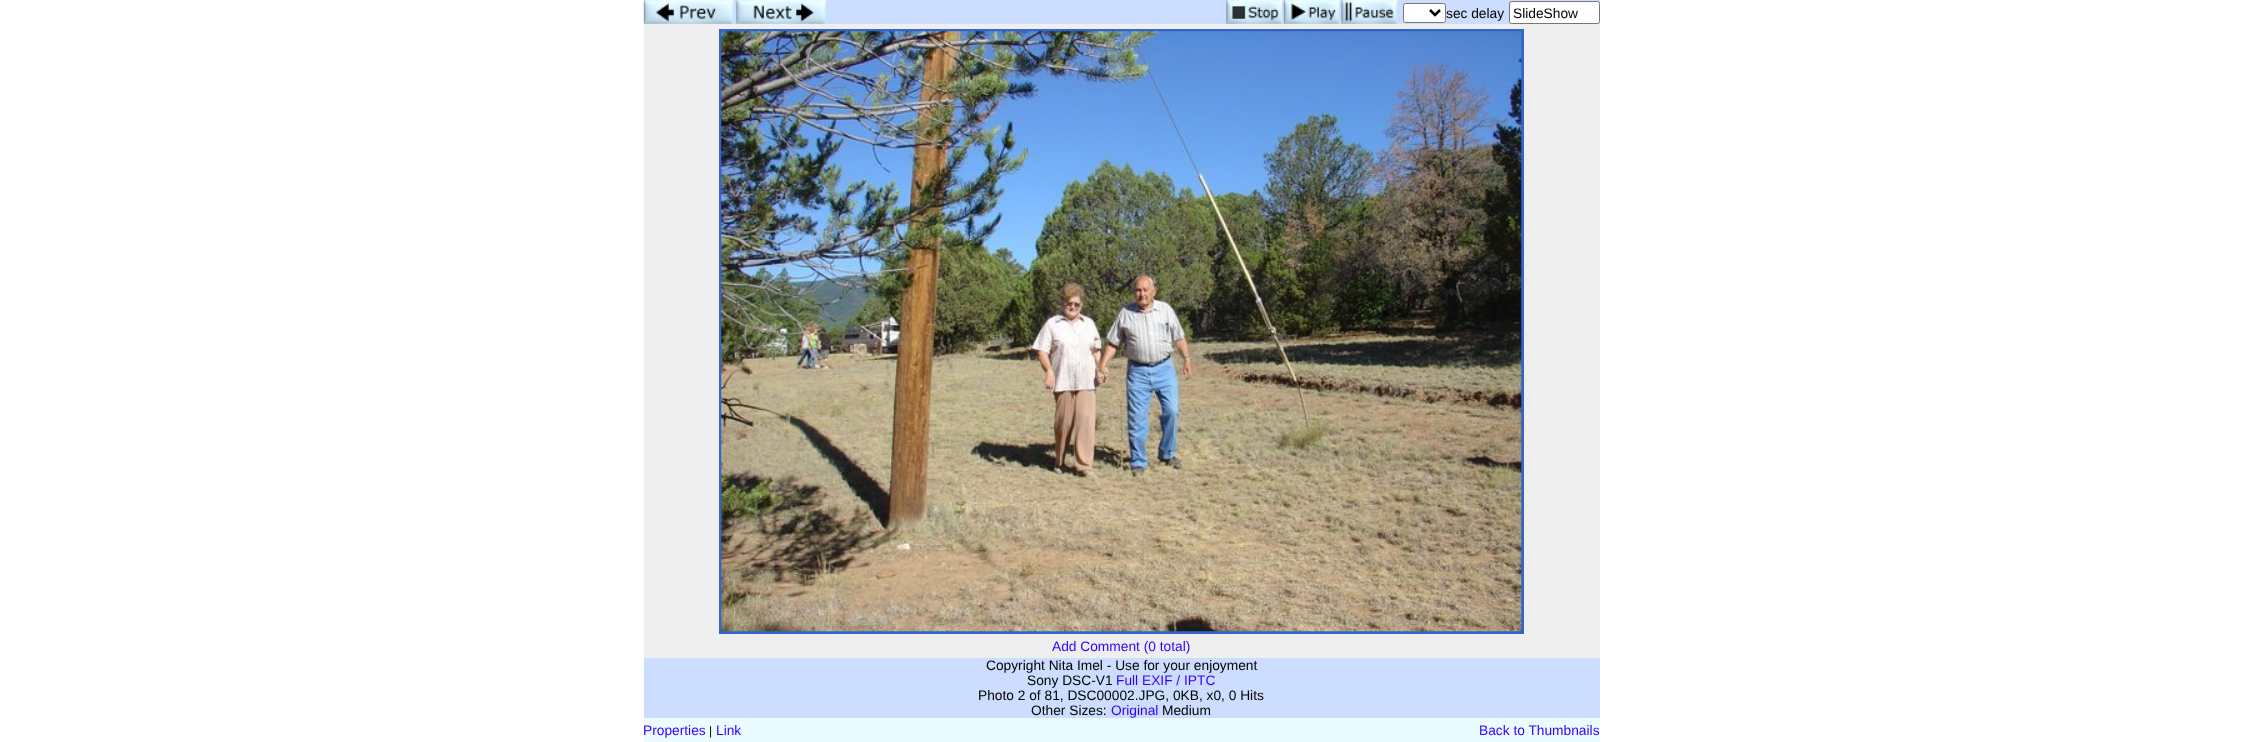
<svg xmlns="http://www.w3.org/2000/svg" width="2242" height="742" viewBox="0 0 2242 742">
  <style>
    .t1 { font: 13.75px Liberation Sans; fill: #000; }
    .t2 { font: 13.75px Liberation Sans; fill: #30f; }
    .t3 { font: 12px Liberation Sans; fill: #000; }
  </style>
  <rect width="100%" height="100%" fill="#fff"/>
  <rect x="644" y="0" width="956" height="24" fill="#cdf"/>
  <image x="643" y="0" width="91" height="24" href="images/1.png"/>
  <image x="736" y="0" width="91" height="24" href="images/2.png"/>
  <image x="1226" y="0" width="57" height="24" href="images/3.png"/>
  <image x="1283" y="0" width="57" height="24" href="images/4.png"/>
  <image x="1341" y="0" width="57" height="24" href="images/5.png"/>
  <rect x="1403.5" y="3.5" width="42" height="19" rx="2" fill="#fff" stroke="#767676"/>
  <path d="M1430 10L1435 15L1440 10" fill="none" stroke="#000" stroke-width="2.5"/>
  <text x="1446" y="18" class="t1">sec delay</text>
  <rect x="1509.5" y="1.5" width="90" height="22" rx="2" fill="#fff" stroke="#767676"/>
  <text x="1513" y="18" class="t1">SlideShow</text>
  <rect x="644" y="24" width="956" height="634" fill="#efefef"/>
  <rect x="720.5" y="30.5" width="802" height="602" fill="none" stroke="#36c" stroke-width="3"/>
  <image x="721" y="31" width="801" height="601" href="images/6.png"/>
  <text x="1052" y="651" class="t2">Add Comment (0 total)</text>
  <rect x="644" y="658" width="956" height="60" fill="#cdf"/>
  <text x="986" y="670" class="t1">Copyright Nita Imel - Use for your enjoyment</text>
  <text x="1027" y="685" class="t1">Sony DSC-V1</text>
  <text x="1116" y="685" class="t2">Full EXIF / IPTC</text>
  <text x="978" y="700" class="t1">Photo 2 of 81, DSC00002.JPG, 0KB, x0, 0 Hits</text>
  <text x="1031" y="715" class="t1">Other Sizes:</text>
  <text x="1111" y="715" class="t2">Original</text>
  <text x="1162" y="715" class="t1">Medium</text>
  <rect x="644" y="718" width="956" height="24" fill="#eafcff"/>
  <text x="643" y="735" class="t2">Properties</text>
  <text x="709" y="735" class="t3">|</text>
  <text x="716" y="735" class="t2">Link</text>
  <text x="1479" y="735" class="t2">Back to Thumbnails</text>
</svg>
